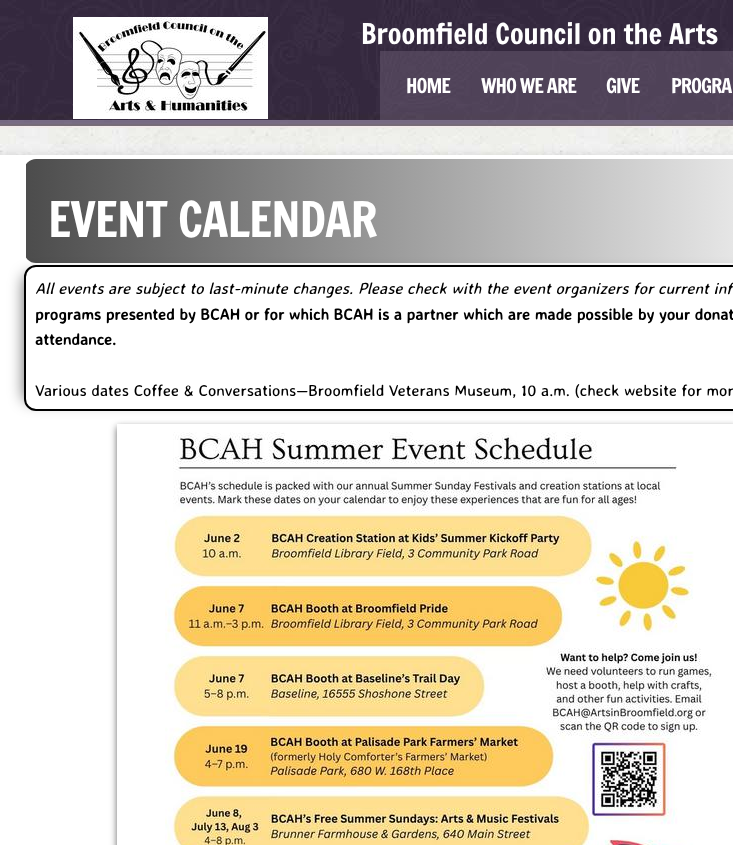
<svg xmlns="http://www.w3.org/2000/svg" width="733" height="845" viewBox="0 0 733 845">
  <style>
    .t1 { font: 28px Francois One; fill: #fff; }
    .t2 { font: 20px Francois One; letter-spacing: -1px; fill: #fff; }
    .t3 { font: 48px Francois One; letter-spacing: -1px; fill: #fff; }
    .t4 { font: italic 16px Averia Sans Libre; fill: #000; }
    .t5 { font: bold 16px Averia Sans Libre; fill: #000; }
    .t6 { font: 16px Averia Sans Libre; fill: #000; }
  </style>
  <defs>
    <clipPath id="clip1"><rect x="24" y="159" width="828" height="104" rx="12"/></clipPath>
    <linearGradient id="g1" gradientUnits="userSpaceOnUse" x1="26" y1="211" x2="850" y2="211"><stop offset="0" stop-color="#4c4c4c"/><stop offset="1" stop-color="#fff"/></linearGradient>
    <clipPath id="clip2"><path d="M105 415H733V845H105ZM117 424H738V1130H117Z" clip-rule="evenodd"/></clipPath>
  </defs>
  <rect width="100%" height="100%" fill="#fff"/>
  <image x="0" y="0" width="733" height="155" href="images/1.png"/>
  <rect x="0" y="155" width="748" height="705" fill="#0000001a" filter="blur(5px)"/>
  <rect x="0" y="155" width="733" height="690" fill="#fff"/>
  <image x="73" y="17" width="195" height="102" href="images/2.png"/>
  <text x="361" y="44" class="t1">Broomfield Council on the Arts</text>
  <rect x="380" y="51" width="353" height="69" fill="#796a8066"/>
  <text x="406" y="93" class="t2">HOME</text>
  <text x="481" y="93" class="t2">WHO WE ARE</text>
  <text x="606" y="93" class="t2">GIVE</text>
  <text x="671" y="93" class="t2">PROGRA</text>
  <g clip-path="url(#clip1)">
    <rect x="26" y="159" width="707" height="104" fill="url(#g1)"/>
  </g>
  <text x="48" y="237" class="t3">EVENT CALENDAR</text>
  <rect x="24" y="275" width="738" height="126" rx="6" fill="#00000099" filter="blur(7.5px)"/>
  <path d="M36 265H733V411H36C29.5 411 24 405.5 24 399V277C24 270.5 29.5 265 36 265Z" fill="#fff"/>
  <rect x="25" y="266" width="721" height="144" rx="11" fill="none" stroke="#000" stroke-width="2"/>
  <text x="35" y="294" class="t4">All events are subject to last-minute changes. Please check with the event organizers for current inf</text>
  <text x="35" y="320" class="t5">programs presented by BCAH or for which BCAH is a partner which are made possible by your donat</text>
  <text x="35" y="345" class="t5">attendance.</text>
  <text x="35" y="396" class="t6">Various dates Coffee &amp; Conversations—Broomfield Veterans Museum, 10 a.m. (check website for mor</text>
  <g clip-path="url(#clip2)">
    <rect x="117" y="427" width="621" height="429" fill="#323232bf" filter="blur(3.5px)"/>
  </g>
  <image x="165" y="432" width="552" height="413" href="images/3.png"/>
</svg>
